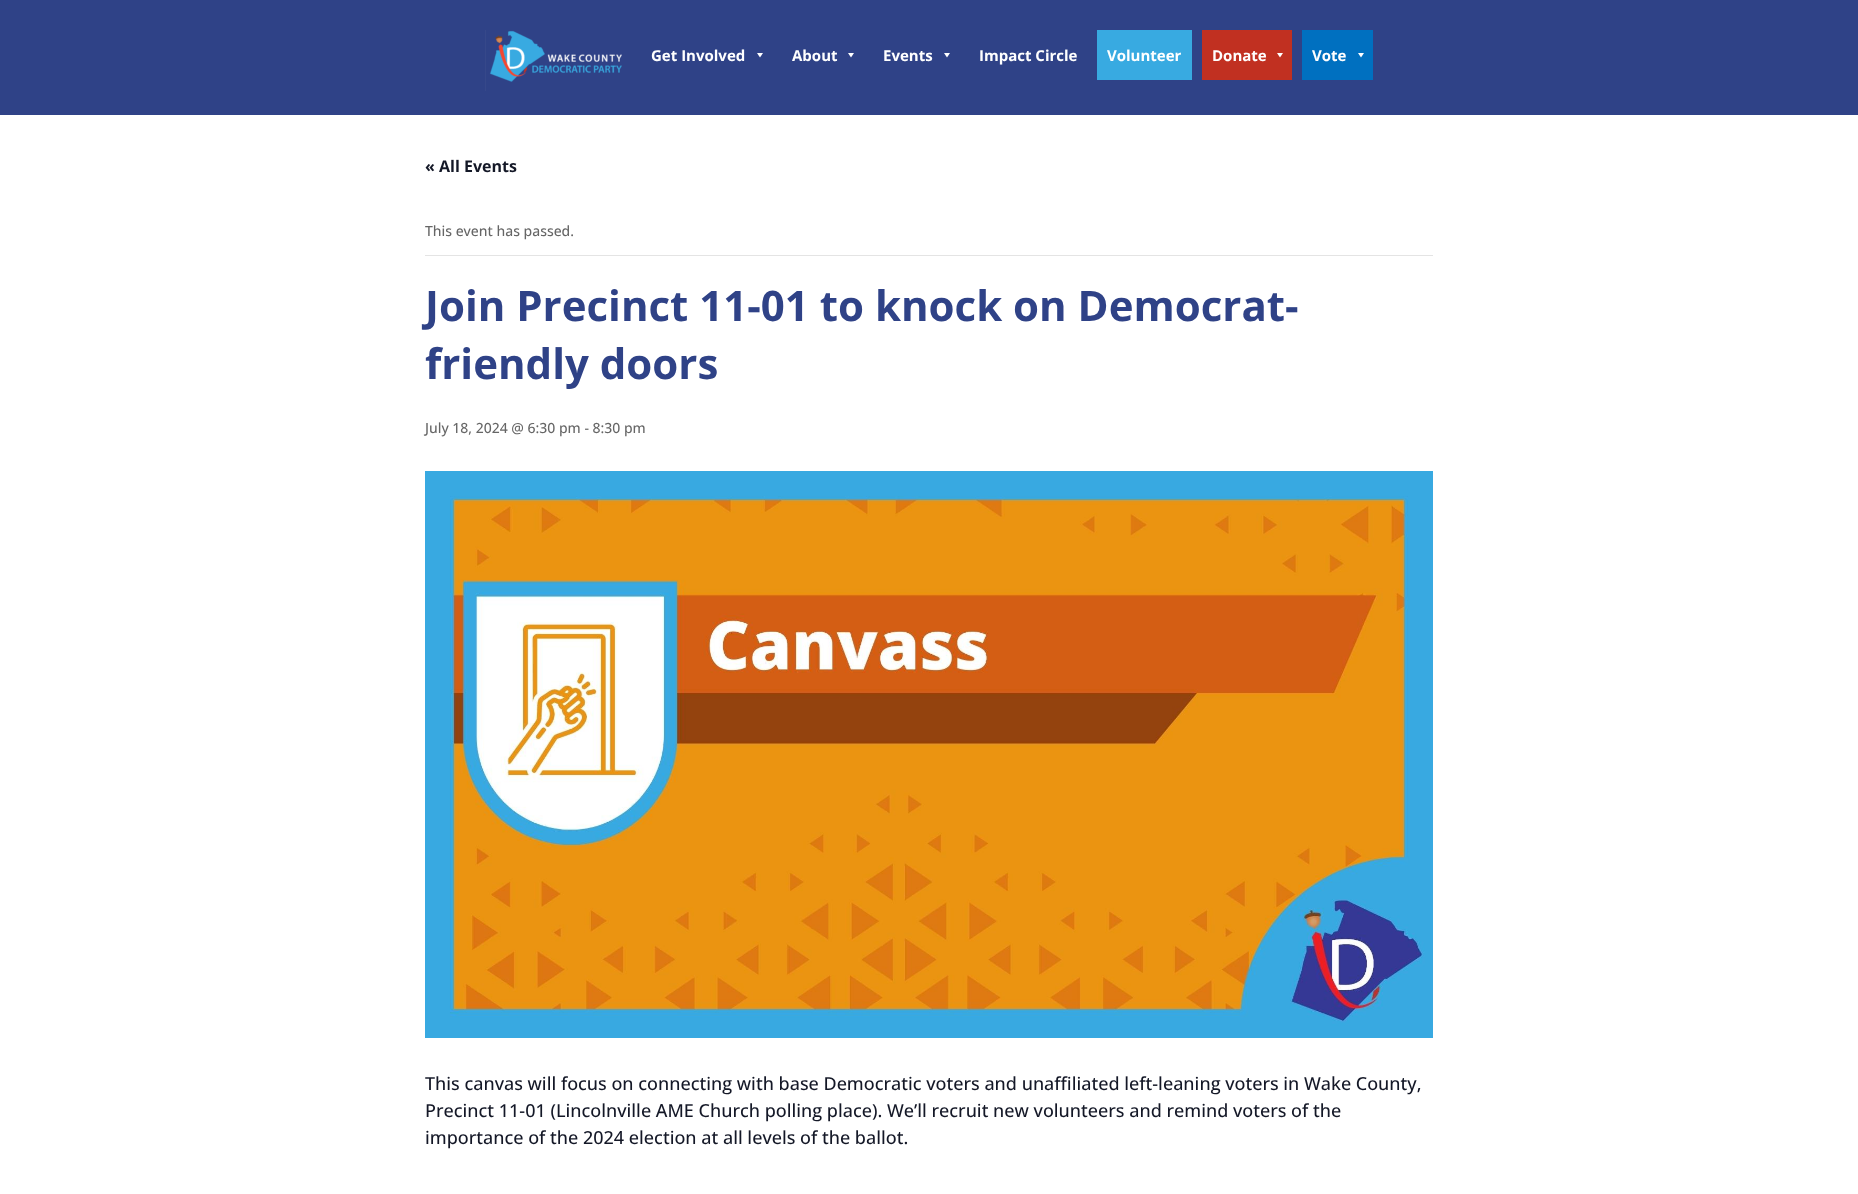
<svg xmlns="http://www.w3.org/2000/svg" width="1858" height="1194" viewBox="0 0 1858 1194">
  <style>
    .t1 { font: bold 15px Open Sans; fill: #fff; }
    .t2 { font: bold 16px Open Sans; fill: #141827; }
    .t3 { font: 500 14px Open Sans; fill: #666; }
    .t4 { font: bold 42px Open Sans; fill: #2f4287; }
    .t5 { font: 500 18px Open Sans; fill: #141827; }
  </style>
  <rect width="100%" height="100%" fill="#fff"/>
  <rect x="0" y="0" width="1858" height="115" fill="#2f4287"/>
  <image x="485" y="30" width="137" height="61" href="images/1.png"/>
  <text x="651" y="61" class="t1">Get Involved</text>
  <path d="M763 53L760 57.5L757 53Z" fill="#fff"/>
  <text x="792" y="61" class="t1">About</text>
  <path d="M854 53L851 57.5L848 53Z" fill="#fff"/>
  <text x="883" y="61" class="t1">Events</text>
  <path d="M950 53L947 57.5L944 53Z" fill="#fff"/>
  <text x="979" y="61" class="t1">Impact Circle</text>
  <rect x="1097" y="30" width="95" height="50" fill="#38aae1"/>
  <text x="1107" y="61" class="t1">Volunteer</text>
  <rect x="1202" y="30" width="90" height="50" fill="#c13021"/>
  <text x="1212" y="61" class="t1">Donate</text>
  <path d="M1283 53L1280 57.5L1277 53Z" fill="#fff"/>
  <rect x="1302" y="30" width="71" height="50" fill="#0070c0"/>
  <text x="1312" y="61" class="t1">Vote</text>
  <path d="M1364 53L1361 57.5L1358 53Z" fill="#fff"/>
  <text x="425" y="172" class="t2">« All Events</text>
  <rect x="425" y="255" width="1008" height="1" fill="#e4e4e4"/>
  <text x="425" y="236" class="t3">This event has passed.</text>
  <text x="425" y="321" class="t4">Join Precinct 11-01 to knock on Democrat-</text>
  <text x="425" y="379" class="t4">friendly doors</text>
  <text x="425" y="433" class="t3">July 18, 2024 @ 6:30 pm - 8:30 pm</text>
  <image x="425" y="471" width="1008" height="567" href="images/2.png"/>
  <text x="425" y="1090" class="t5">This canvas will focus on connecting with base Democratic voters and unaffiliated left-leaning voters in Wake County,</text>
  <text x="425" y="1117" class="t5">Precinct 11-01 (Lincolnville AME Church polling place). We’ll recruit new volunteers and remind voters of the</text>
  <text x="425" y="1144" class="t5">importance of the 2024 election at all levels of the ballot.</text>
</svg>
